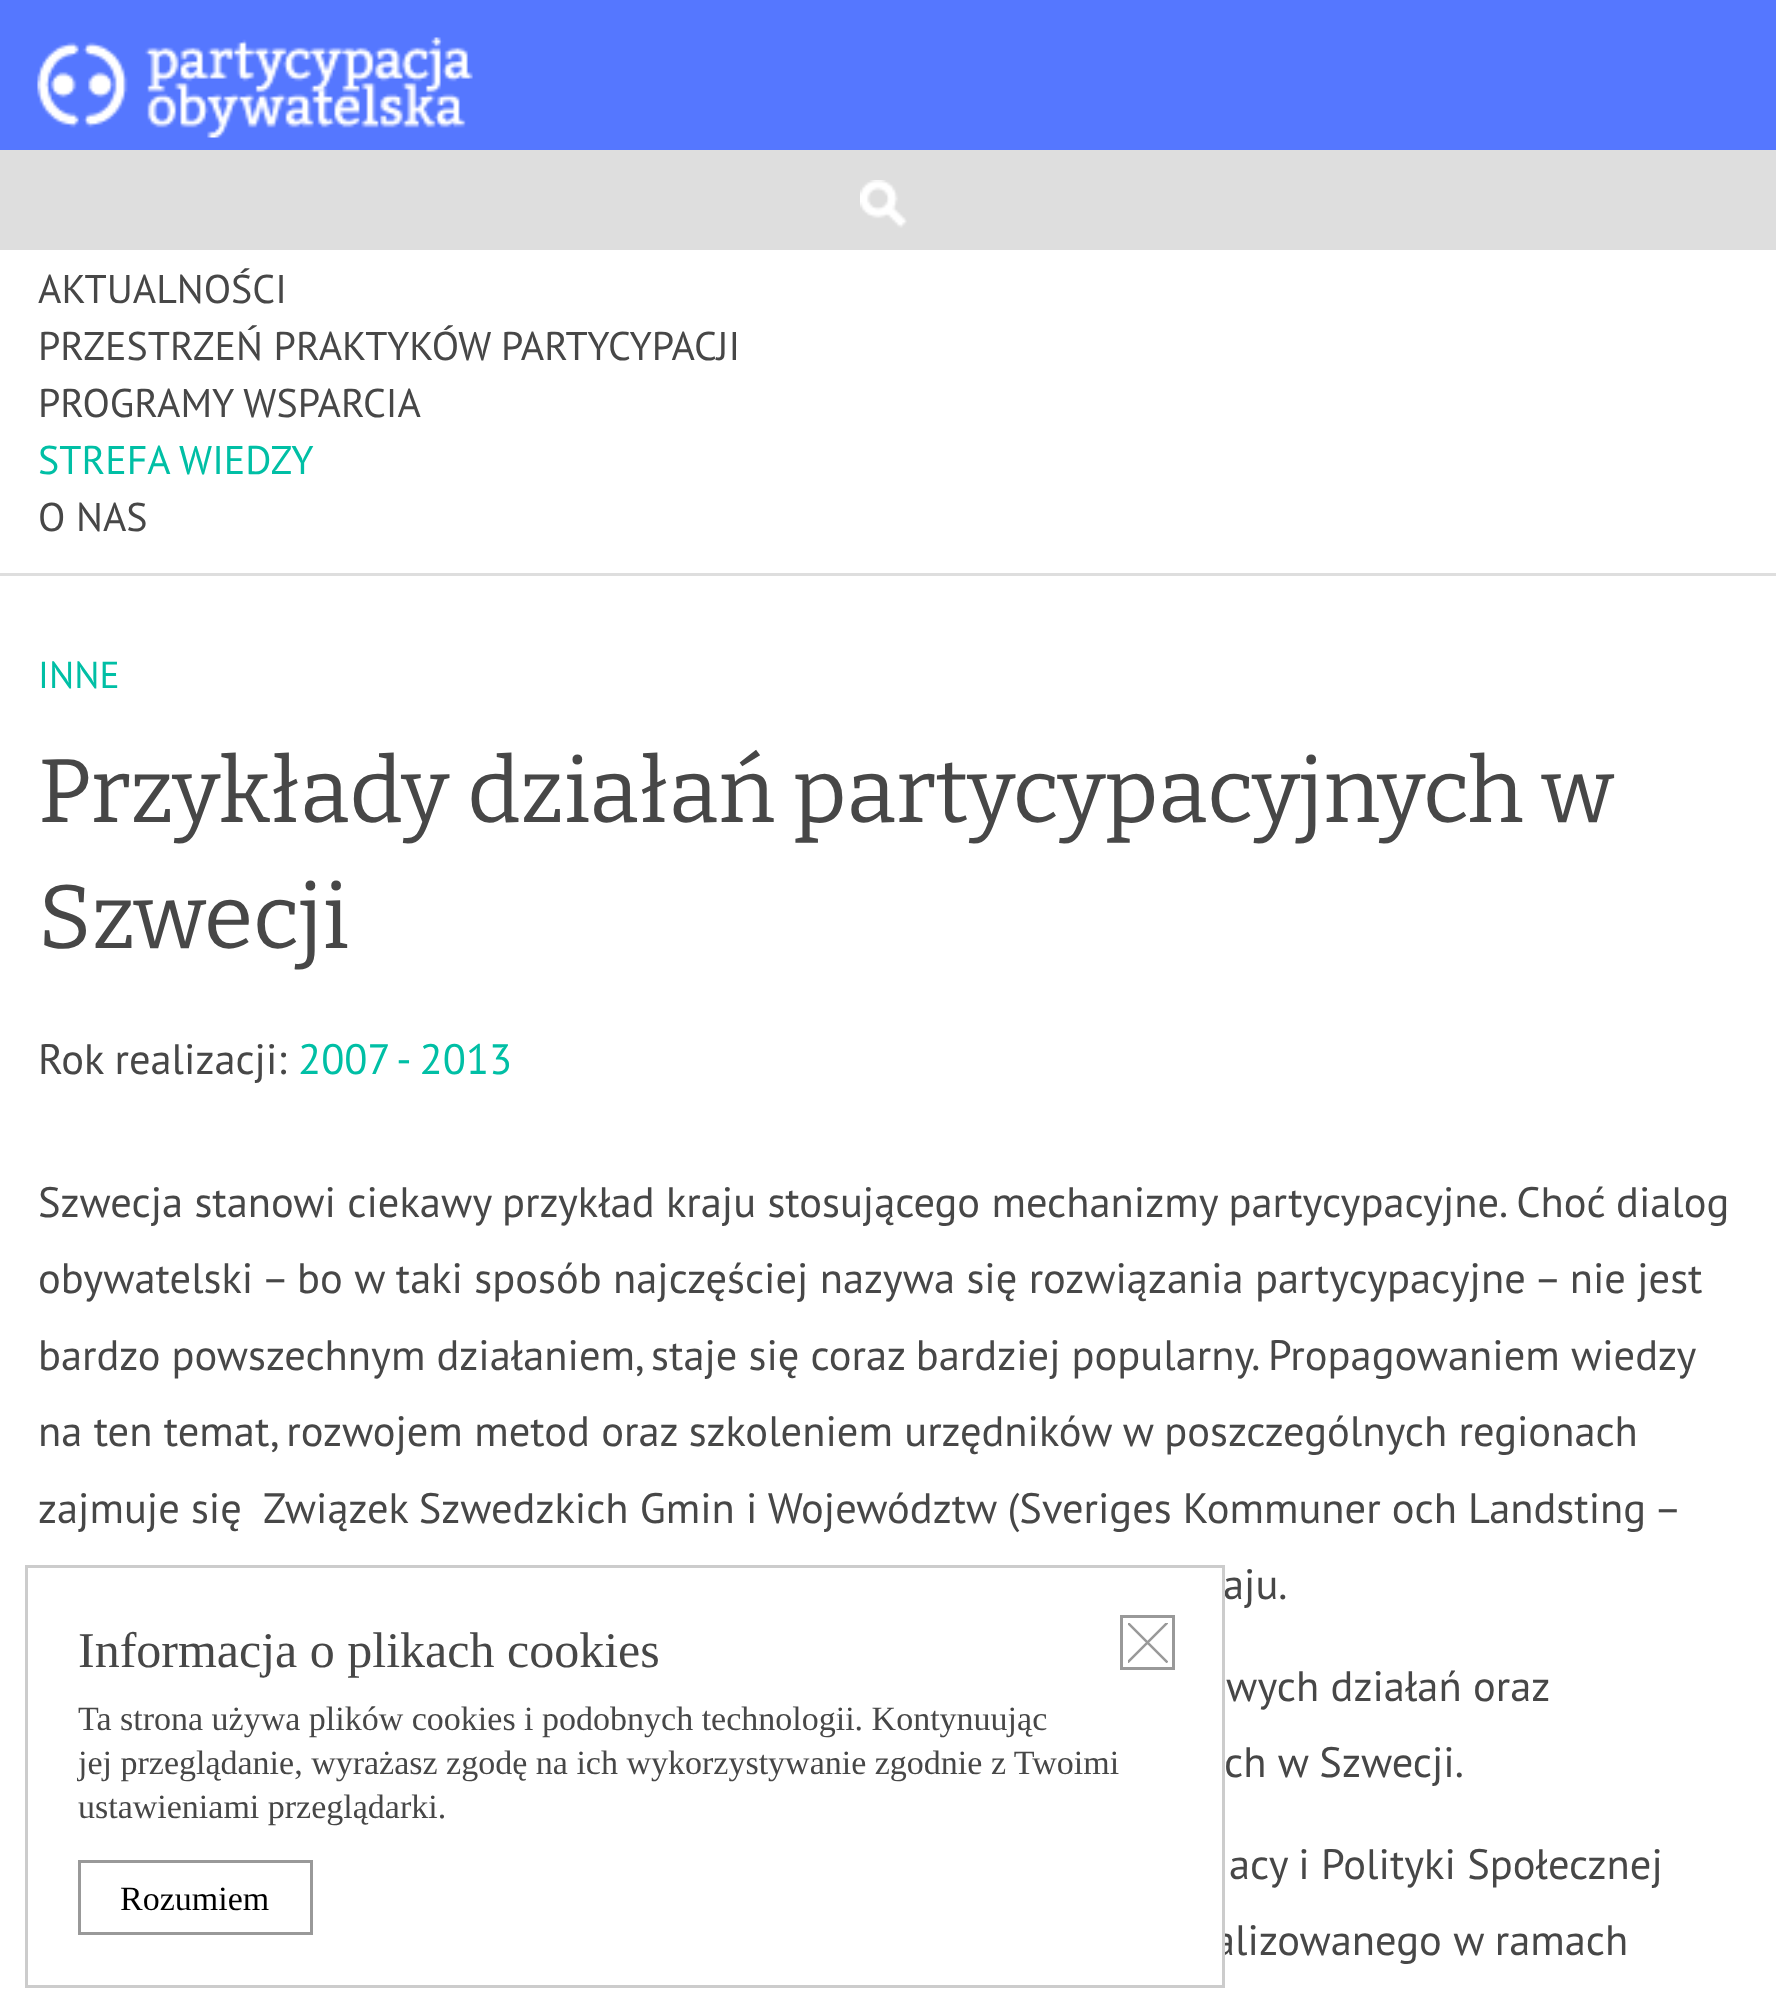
<svg xmlns="http://www.w3.org/2000/svg" width="1776" height="2012" viewBox="0 0 1776 2012">
  <style>
    .t1 { font: 40px PT Sans; fill: #474747; }
    .t2 { font: 40px PT Sans; fill: #00bfa5; }
    .t3 { font: 37.5px PT Sans; fill: #00bfa5; }
    .t4 { font: 100 90px Bitter; fill: #474747; }
    .t5 { font: 42.5px PT Sans; fill: #474747; }
    .t6 { font: 42.5px PT Sans; fill: #00bfa5; }
    .t7 { font: 50px Liberation Serif; fill: #474747; }
    .t8 { font: 34px Liberation Serif; fill: #474747; }
    .t9 { font: 34px Liberation Serif; fill: #000; }
  </style>
  <defs>
    <clipPath id="clip1"><rect x="1128" y="1623" width="40" height="40"/></clipPath>
  </defs>
  <rect width="100%" height="100%" fill="#fff"/>
  <rect x="0" y="0" width="1776" height="150" fill="#57f"/>
  <image x="37" y="37" width="436" height="101" href="images/1.png"/>
  <rect x="0" y="150" width="1776" height="100" fill="#dedede"/>
  <image x="860" y="180" width="47" height="48" href="images/2.png"/>
  <rect x="0" y="573" width="1776" height="3" fill="#dedede"/>
  <text x="38" y="303" class="t1">AKTUALNOŚCI</text>
  <text x="38" y="360" class="t1">PRZESTRZEŃ PRAKTYKÓW PARTYCYPACJI</text>
  <text x="38" y="417" class="t1">PROGRAMY WSPARCIA</text>
  <text x="38" y="474" class="t2">STREFA WIEDZY</text>
  <text x="38" y="531" class="t1">O NAS</text>
  <text x="38" y="688" class="t3">INNE</text>
  <text x="38" y="822" class="t4">Przykłady działań partycypacyjnych w</text>
  <text x="38" y="948" class="t4">Szwecji</text>
  <text x="38" y="1074" class="t5">Rok realizacji:</text>
  <text x="298" y="1074" class="t6">2007 - 2013</text>
  <text x="38" y="1217" class="t5">Szwecja stanowi ciekawy przykład kraju stosującego mechanizmy partycypacyjne. Choć dialog</text>
  <text x="38" y="1293" class="t5">obywatelski – bo w taki sposób najczęściej nazywa się rozwiązania partycypacyjne – nie jest</text>
  <text x="38" y="1370" word-spacing="-0.25" class="t5">bardzo powszechnym działaniem, staje się coraz bardziej popularny. Propagowaniem wiedzy</text>
  <text x="38" y="1446" class="t5">na ten temat, rozwojem metod oraz szkoleniem urzędników w poszczególnych regionach</text>
  <text x="38" y="1523" word-spacing="-0.25" class="t5" xml:space="preserve">zajmuje się  Związek Szwedzkich Gmin i Województw (Sveriges Kommuner och Landsting –</text>
  <text x="1223" y="1599" class="t5">aju.</text>
  <text x="1226" y="1701" class="t5">wych działań oraz</text>
  <text x="1224" y="1777" class="t5">ch w Szwecji.</text>
  <text x="1229" y="1879" class="t5">acy i Polityki Społecznej</text>
  <text x="1214" y="1955" class="t5">alizowanego w ramach</text>
  <rect x="1215" y="1933" width="7" height="23" fill="#fff"/>
  <rect x="26.5" y="1566.5" width="1197" height="420" fill="none" stroke="#ccc" stroke-width="3"/>
  <text x="78" y="1667" class="t7">Informacja o plikach cookies</text>
  <text x="78" y="1730" class="t8">Ta strona używa plików cookies i podobnych technologii. Kontynuując</text>
  <text x="78" y="1774" class="t8">jej przeglądanie, wyrażasz zgodę na ich wykorzystywanie zgodnie z Twoimi</text>
  <text x="78" y="1818" class="t8">ustawieniami przeglądarki.</text>
  <rect x="79.5" y="1861.5" width="232" height="72" fill="none" stroke="#999" stroke-width="3"/>
  <text x="120" y="1910" class="t9">Rozumiem</text>
  <rect x="1121.5" y="1616.5" width="52" height="52" fill="none" stroke="#999" stroke-width="3"/>
  <g clip-path="url(#clip1)">
    <path d="M1127.5 1662.5L1167.5 1622.5M1127.5 1622.5L1167.5 1662.5" fill="none" stroke="#999" stroke-width="2.5"/>
  </g>
</svg>
